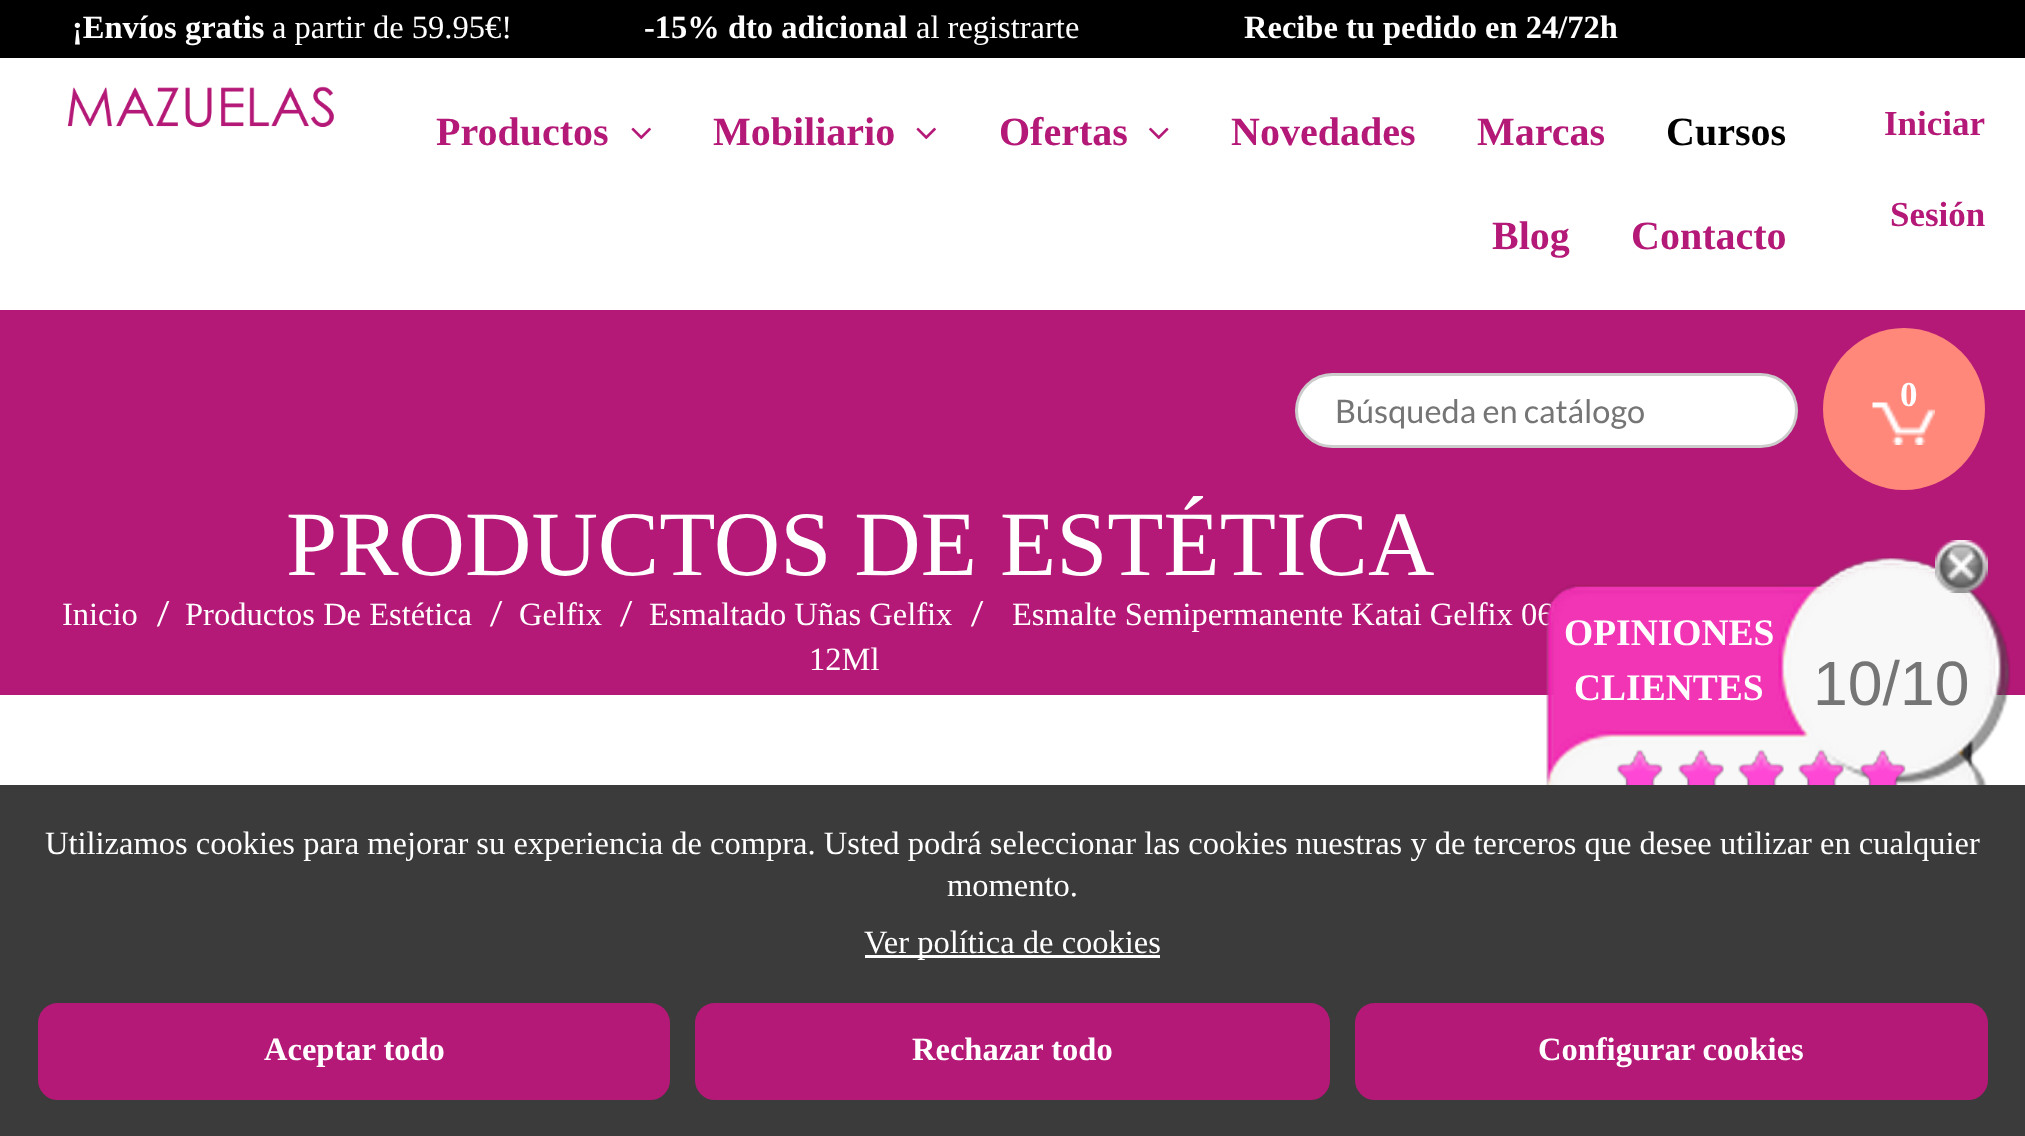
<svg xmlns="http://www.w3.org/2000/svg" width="2025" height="1136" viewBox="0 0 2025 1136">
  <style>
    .t1 { font: bold 32.5px Liberation Serif; fill: #fff; }
    .t2 { font: 32.5px Liberation Serif; fill: #fff; }
    .t3 { font: bold 40px Liberation Serif; fill: #b51977; }
    .t4 { font: bold 40px Liberation Serif; fill: #000; }
    .t5 { font: bold 35px Liberation Serif; fill: #b51977; }
    .t6 { font: bold 35px Liberation Serif; fill: #fff; }
    .t7 { font: 32.5px Lato; fill: #757575; }
    .t8 { font: 92px Liberation Serif; fill: #fff; }
    .t9 { font: 32.5px Lato; fill: #fff; }
    .t10 { font: bold 37.5px Liberation Serif; fill: #fff; }
    .t11 { font: 62.5px Liberation Sans; fill: #757575; }
  </style>
  <rect width="100%" height="100%" fill="#fff"/>
  <rect x="0" y="310" width="2025" height="385" fill="#b51977"/>
  <rect x="0" y="0" width="2025" height="58" fill="#000"/>
  <text x="72" y="38" class="t1">¡Envíos gratis</text>
  <text x="272" y="38" class="t2">a partir de 59.95€!</text>
  <text x="644" y="38" class="t1">-15% dto adicional</text>
  <text x="916" y="38" class="t2">al registrarte</text>
  <text x="1244" y="38" class="t1">Recibe tu pedido en 24/72h</text>
  <image x="67" y="86" width="267" height="41" href="images/1.png"/>
  <text x="436" y="145" class="t3">Productos</text>
  <image x="631" y="127" width="20" height="13" href="images/2.png"/>
  <text x="713" y="145" class="t3">Mobiliario</text>
  <image x="916" y="127" width="20" height="13" href="images/2.png"/>
  <text x="999" y="145" class="t3">Ofertas</text>
  <image x="1149" y="127" width="20" height="13" href="images/3.png"/>
  <text x="1231" y="145" class="t3">Novedades</text>
  <text x="1477" y="145" class="t3">Marcas</text>
  <text x="1666" y="145" class="t4">Cursos</text>
  <text x="1492" y="249" class="t3">Blog</text>
  <text x="1631" y="249" class="t3">Contacto</text>
  <text x="1884" y="135" class="t5">Iniciar</text>
  <text x="1890" y="226" class="t5">Sesión</text>
  <circle cx="1904" cy="409" r="81" fill="#ff887b"/>
  <image x="1872" y="402" width="63" height="43" href="images/4.png"/>
  <text x="1900" y="406" class="t6">0</text>
  <rect x="1295" y="373" width="503" height="75" rx="37.5" fill="#fff"/>
  <rect x="1296.5" y="374.5" width="500" height="72" rx="36" fill="none" stroke="#00000033" stroke-width="3"/>
  <text x="1335" y="423" class="t7">Búsqueda en catálogo</text>
  <text x="286" y="575" class="t8">PRODUCTOS DE ESTÉTICA</text>
  <text x="62" y="625" class="t2">Inicio</text>
  <text x="157" y="625" class="t9">/</text>
  <text x="185" y="625" class="t2">Productos De Estética</text>
  <text x="490" y="625" class="t9">/</text>
  <text x="519" y="625" class="t2">Gelfix</text>
  <text x="620" y="625" class="t9">/</text>
  <text x="649" y="625" class="t2">Esmaltado Uñas Gelfix</text>
  <text x="971" y="625" class="t9">/</text>
  <text x="1012" y="625" class="t2">Esmalte Semipermanente Katai Gelfix 06</text>
  <text x="809" y="670" class="t2">12Ml</text>
  <image x="1546" y="557" width="465" height="228" href="images/6.png"/>
  <image x="1935" y="540" width="53" height="53" href="images/5.png"/>
  <text x="1564" y="645" class="t10">OPINIONES</text>
  <text x="1574" y="700" class="t10">CLIENTES</text>
  <text x="1813" y="705" class="t11">10/10</text>
  <image x="1616" y="749" width="290" height="36" href="images/7.png"/>
  <rect x="0" y="785" width="2025" height="351" fill="#3b3b3b"/>
  <text x="45" y="854" class="t2">Utilizamos cookies para mejorar su experiencia de compra. Usted podrá seleccionar las cookies nuestras y de terceros que desee utilizar en cualquier</text>
  <text x="947" y="896" class="t2">momento.</text>
  <rect x="865" y="955" width="295" height="3" fill="#fff"/>
  <text x="864" y="953" class="t2">Ver política de cookies</text>
  <rect x="39.5" y="1004.5" width="629" height="94" rx="18.5" fill="#b51977" stroke="#b51977" stroke-width="3"/>
  <text x="264" y="1060" class="t1">Aceptar todo</text>
  <rect x="696.5" y="1004.5" width="632" height="94" rx="18.5" fill="#b51977" stroke="#b51977" stroke-width="3"/>
  <text x="912" y="1060" class="t1">Rechazar todo</text>
  <rect x="1356.5" y="1004.5" width="630" height="94" rx="18.5" fill="#b51977" stroke="#b51977" stroke-width="3"/>
  <text x="1538" y="1060" class="t1">Configurar cookies</text>
</svg>
